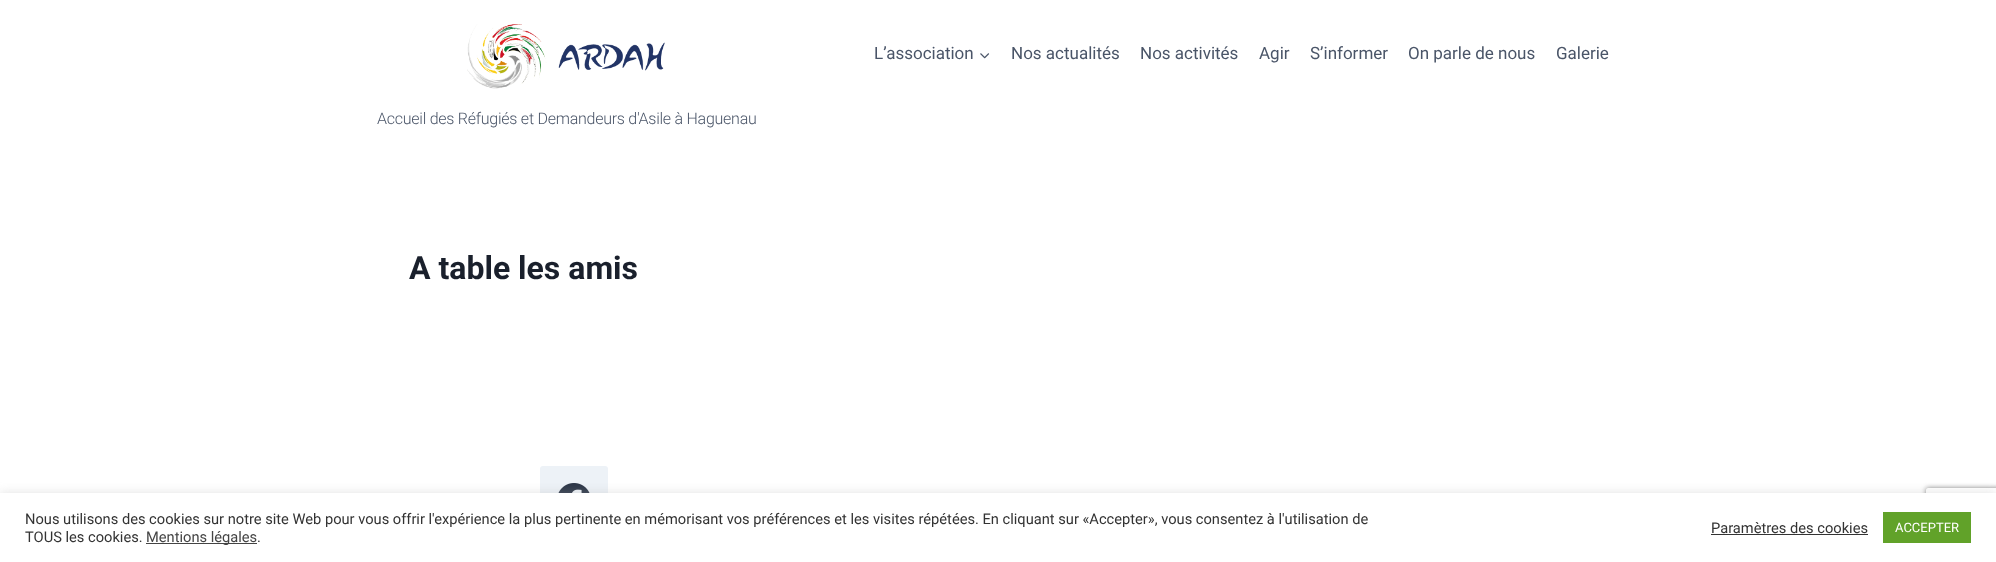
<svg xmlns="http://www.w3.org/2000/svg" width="1996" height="562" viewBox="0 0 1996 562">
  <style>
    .t1 { font: 17px Roboto; fill: #4a5568; }
    .t2 { font: 300 16px Roboto; letter-spacing: -0.25px; fill: #4a5568; }
    .t3 { font: bold 32px Roboto; fill: #1a202c; }
    .t4 { font: 14.67px Roboto; fill: #333; }
    .t5 { font: 14.67px Roboto; fill: #444; }
    .t6 { font: 13px Roboto; fill: #fff; }
  </style>
  <defs>
    <clipPath id="clip1"><path d="M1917 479H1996V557H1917ZM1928 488H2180C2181 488 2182 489 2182 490V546C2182 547 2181 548 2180 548H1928C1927 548 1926 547 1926 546V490C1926 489 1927 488 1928 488Z" clip-rule="evenodd"/></clipPath>
  </defs>
  <rect width="100%" height="100%" fill="#fff"/>
  <text x="874" y="59" class="t1">L’association</text>
  <image x="980" y="53" width="10" height="6" href="images/1.png"/>
  <text x="1011" y="59" class="t1">Nos actualités</text>
  <text x="1140" y="59" class="t1">Nos activités</text>
  <text x="1259" y="59" class="t1">Agir</text>
  <text x="1310" y="59" class="t1">S’informer</text>
  <text x="1408" y="59" class="t1">On parle de nous</text>
  <text x="1556" y="59" class="t1">Galerie</text>
  <image x="467" y="24" width="198" height="65" href="images/2.png"/>
  <text x="377" y="124" class="t2">Accueil des Réfugiés et Demandeurs d'Asile à Haguenau</text>
  <text x="409" y="279" class="t3">A table les amis</text>
  <rect x="540" y="466" width="68" height="68" rx="3" fill="#edf2f7"/>
  <image x="558" y="483" width="32" height="10" href="images/3.png"/>
  <g clip-path="url(#clip1)">
    <rect x="1926" y="488" width="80" height="60" rx="2" fill="#808080" filter="blur(2.5px)"/>
  </g>
  <rect x="0" y="492" width="1996" height="69" fill="#acabab4d" filter="blur(5px)"/>
  <rect x="0" y="493" width="1996" height="69" fill="#fff"/>
  <text x="25" y="524" class="t4">Nous utilisons des cookies sur notre site Web pour vous offrir l'expérience la plus pertinente en mémorisant vos préférences et les visites répétées. En cliquant sur «Accepter», vous consentez à l'utilisation de</text>
  <text x="25" y="542" class="t4">TOUS les cookies.</text>
  <rect x="146" y="543" width="111" height="1" fill="#444"/>
  <text x="146" y="542" class="t5">Mentions légales</text>
  <text x="257" y="542" class="t4">.</text>
  <text x="1711" y="533" class="t4">Paramètres des cookies</text>
  <rect x="1711" y="534" width="157" height="1" fill="#333"/>
  <rect x="1883" y="512" width="88" height="31" fill="#61a229"/>
  <text x="1895" y="532" class="t6">ACCEPTER</text>
</svg>
